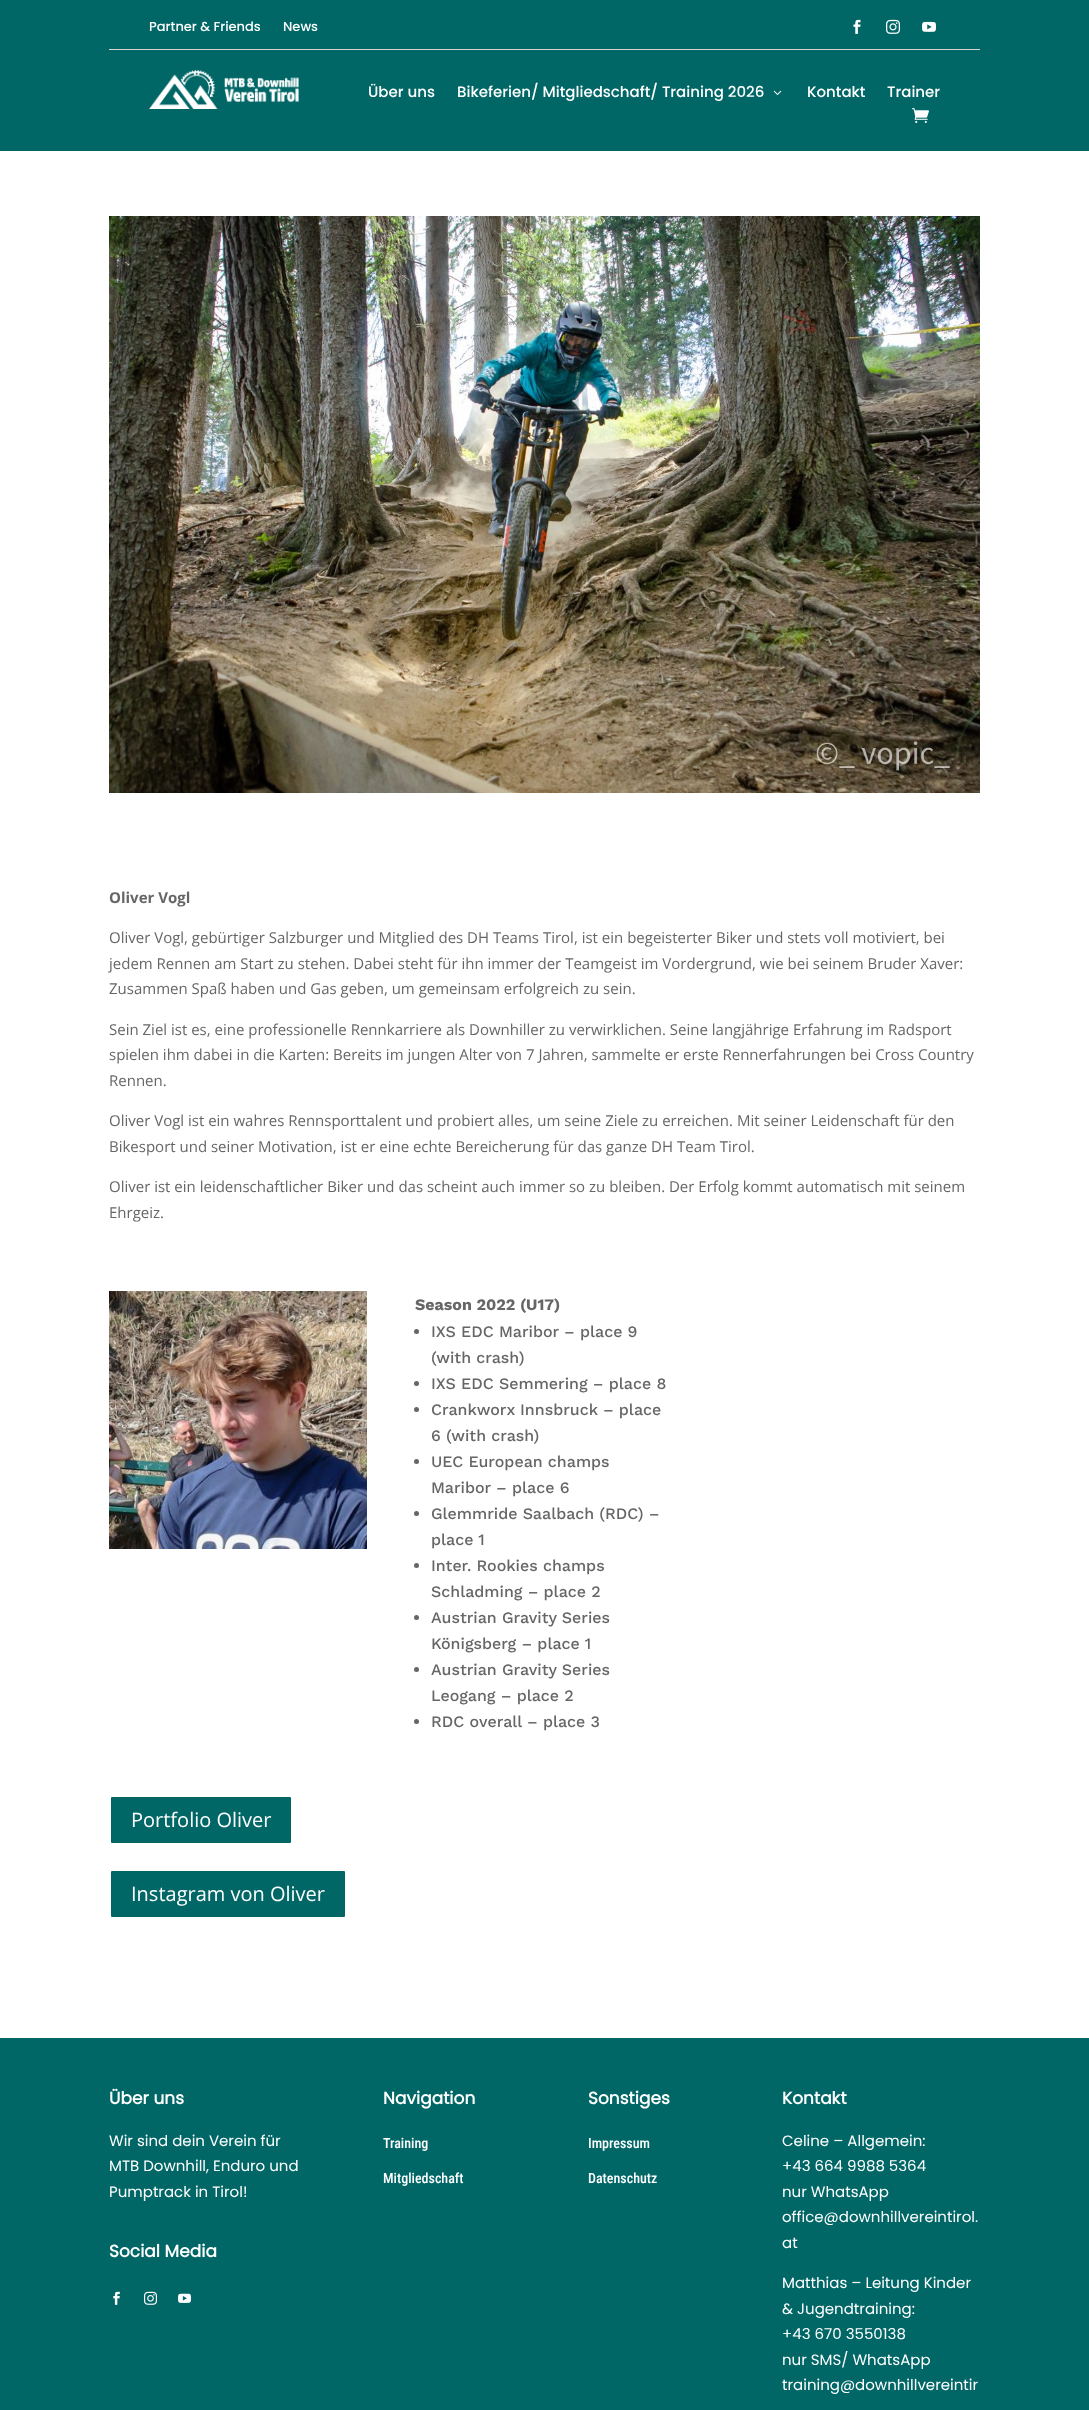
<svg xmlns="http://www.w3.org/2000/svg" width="1089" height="2410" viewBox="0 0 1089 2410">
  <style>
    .t1 { font: 500 13px Poppins; fill: #fff; }
    .t2 { font: 500 15px Poppins; fill: #fff; }
    .t3 { font: bold 15px Open Sans; fill: #666; }
    .t4 { font: 15px Open Sans; fill: #666; }
    .t5 { font: bold 16px Work Sans; fill: #666; }
    .t6 { font: 500 16px Work Sans; fill: #666; }
    .t7 { font: 20px Open Sans; fill: #fff; }
    .t8 { font: bold 17px Poppins; fill: #fff; }
    .t9 { font: 15px Poppins; fill: #fff; }
    .t10 { font: 500 14px Roboto Condensed; fill: #fff; }
  </style>
  <rect width="100%" height="100%" fill="#fff"/>
  <rect x="0" y="0" width="1089" height="151" fill="#066"/>
  <rect x="109" y="49" width="871" height="1" fill="#d6d6d6"/>
  <text x="149" y="31" class="t1">Partner &amp; Friends</text>
  <text x="283" y="31" class="t1">News</text>
  <image x="853" y="19" width="8" height="15" href="images/1.png"/>
  <image x="886" y="19" width="14" height="15" href="images/2.png"/>
  <image x="922" y="21" width="14" height="11" href="images/3.png"/>
  <image x="149" y="70" width="150" height="39" href="images/4.png"/>
  <text x="368" y="97" class="t2">Über uns</text>
  <text x="457" y="97" class="t2">Bikeferien/ Mitgliedschaft/ Training 2026</text>
  <image x="773" y="90" width="9" height="5" href="images/5.png"/>
  <text x="807" y="97" class="t2">Kontakt</text>
  <text x="887" y="97" class="t2">Trainer</text>
  <image x="912" y="108" width="17" height="15" href="images/6.png"/>
  <image x="109" y="216" width="871" height="577" href="images/7.png"/>
  <text x="109" y="903" class="t3">Oliver Vogl</text>
  <text x="109" y="943" class="t4">Oliver Vogl, gebürtiger Salzburger und Mitglied des DH Teams Tirol, ist ein begeisterter Biker und stets voll motiviert, bei</text>
  <text x="109" y="969" class="t4">jedem Rennen am Start zu stehen. Dabei steht für ihn immer der Teamgeist im Vordergrund, wie bei seinem Bruder Xaver:</text>
  <text x="109" y="994" class="t4">Zusammen Spaß haben und Gas geben, um gemeinsam erfolgreich zu sein.</text>
  <text x="109" y="1035" class="t4">Sein Ziel ist es, eine professionelle Rennkarriere als Downhiller zu verwirklichen. Seine langjährige Erfahrung im Radsport</text>
  <text x="109" y="1060" class="t4">spielen ihm dabei in die Karten: Bereits im jungen Alter von 7 Jahren, sammelte er erste Rennerfahrungen bei Cross Country</text>
  <text x="109" y="1086" class="t4">Rennen.</text>
  <text x="109" y="1126" class="t4">Oliver Vogl ist ein wahres Rennsporttalent und probiert alles, um seine Ziele zu erreichen. Mit seiner Leidenschaft für den</text>
  <text x="109" y="1152" class="t4">Bikesport und seiner Motivation, ist er eine echte Bereicherung für das ganze DH Team Tirol.</text>
  <text x="109" y="1192" class="t4">Oliver ist ein leidenschaftlicher Biker und das scheint auch immer so zu bleiben. Der Erfolg kommt automatisch mit seinem</text>
  <text x="109" y="1218" class="t4">Ehrgeiz.</text>
  <image x="109" y="1291" width="258" height="258" href="images/8.png"/>
  <text x="415" y="1310" class="t5">Season 2022 (U17)</text>
  <circle cx="416.5" cy="1331.5" r="2.5" fill="#666"/>
  <text x="431" y="1337" class="t6">IXS EDC Maribor – place 9</text>
  <text x="431" y="1363" class="t6">(with crash)</text>
  <circle cx="416.5" cy="1383.5" r="2.5" fill="#666"/>
  <text x="431" y="1389" class="t6">IXS EDC Semmering – place 8</text>
  <circle cx="416.5" cy="1409.5" r="2.5" fill="#666"/>
  <text x="431" y="1415" class="t6">Crankworx Innsbruck – place</text>
  <text x="431" y="1441" class="t6">6 (with crash)</text>
  <circle cx="416.5" cy="1461.5" r="2.5" fill="#666"/>
  <text x="431" y="1467" class="t6">UEC European champs</text>
  <text x="431" y="1493" class="t6">Maribor – place 6</text>
  <circle cx="416.5" cy="1513.5" r="2.5" fill="#666"/>
  <text x="431" y="1519" class="t6">Glemmride Saalbach (RDC) –</text>
  <text x="431" y="1545" class="t6">place 1</text>
  <circle cx="416.5" cy="1565.5" r="2.5" fill="#666"/>
  <text x="431" y="1571" class="t6">Inter. Rookies champs</text>
  <text x="431" y="1597" class="t6">Schladming – place 2</text>
  <circle cx="416.5" cy="1617.5" r="2.5" fill="#666"/>
  <text x="431" y="1623" class="t6">Austrian Gravity Series</text>
  <text x="431" y="1649" class="t6">Königsberg – place 1</text>
  <circle cx="416.5" cy="1669.5" r="2.5" fill="#666"/>
  <text x="431" y="1675" class="t6">Austrian Gravity Series</text>
  <text x="431" y="1701" class="t6">Leogang – place 2</text>
  <circle cx="416.5" cy="1721.5" r="2.5" fill="#666"/>
  <text x="431" y="1727" class="t6">RDC overall – place 3</text>
  <rect x="110" y="1796" width="182" height="48" rx="2" fill="#066" stroke="#fff" stroke-width="2"/>
  <text x="131" y="1827" class="t7">Portfolio Oliver</text>
  <rect x="110" y="1870" width="236" height="48" rx="2" fill="#066" stroke="#fff" stroke-width="2"/>
  <text x="131" y="1901" class="t7">Instagram von Oliver</text>
  <rect x="0" y="2038" width="1089" height="372" fill="#066"/>
  <text x="109" y="2104" class="t8">Über uns</text>
  <text x="109" y="2146" class="t9">Wir sind dein Verein für</text>
  <text x="109" y="2171" class="t9">MTB Downhill, Enduro und</text>
  <text x="109" y="2197" class="t9">Pumptrack in Tirol!</text>
  <text x="109" y="2257" class="t8">Social Media</text>
  <image x="113" y="2291" width="7" height="14" href="images/9.png"/>
  <image x="144" y="2291" width="13" height="14" href="images/10.png"/>
  <image x="178" y="2293" width="13" height="10" href="images/11.png"/>
  <text x="383" y="2104" class="t8">Navigation</text>
  <text x="383" y="2148" class="t10">Training</text>
  <text x="383" y="2183" class="t10">Mitgliedschaft</text>
  <text x="588" y="2104" class="t8">Sonstiges</text>
  <text x="588" y="2148" class="t10">Impressum</text>
  <text x="588" y="2183" class="t10">Datenschutz</text>
  <text x="782" y="2104" class="t8">Kontakt</text>
  <text x="782" y="2146" class="t9">Celine – Allgemein:</text>
  <text x="782" y="2171" class="t9">+43 664 9988 5364</text>
  <text x="782" y="2197" class="t9">nur WhatsApp</text>
  <text x="782" y="2222" class="t9">office@downhillvereintirol.</text>
  <text x="782" y="2248" class="t9">at</text>
  <text x="782" y="2288" class="t9">Matthias – Leitung Kinder</text>
  <text x="782" y="2314" class="t9">&amp; Jugendtraining:</text>
  <text x="782" y="2339" class="t9">+43 670 3550138</text>
  <text x="782" y="2365" class="t9">nur SMS/ WhatsApp</text>
  <text x="782" y="2390" class="t9">training@downhillvereintir</text>
</svg>
